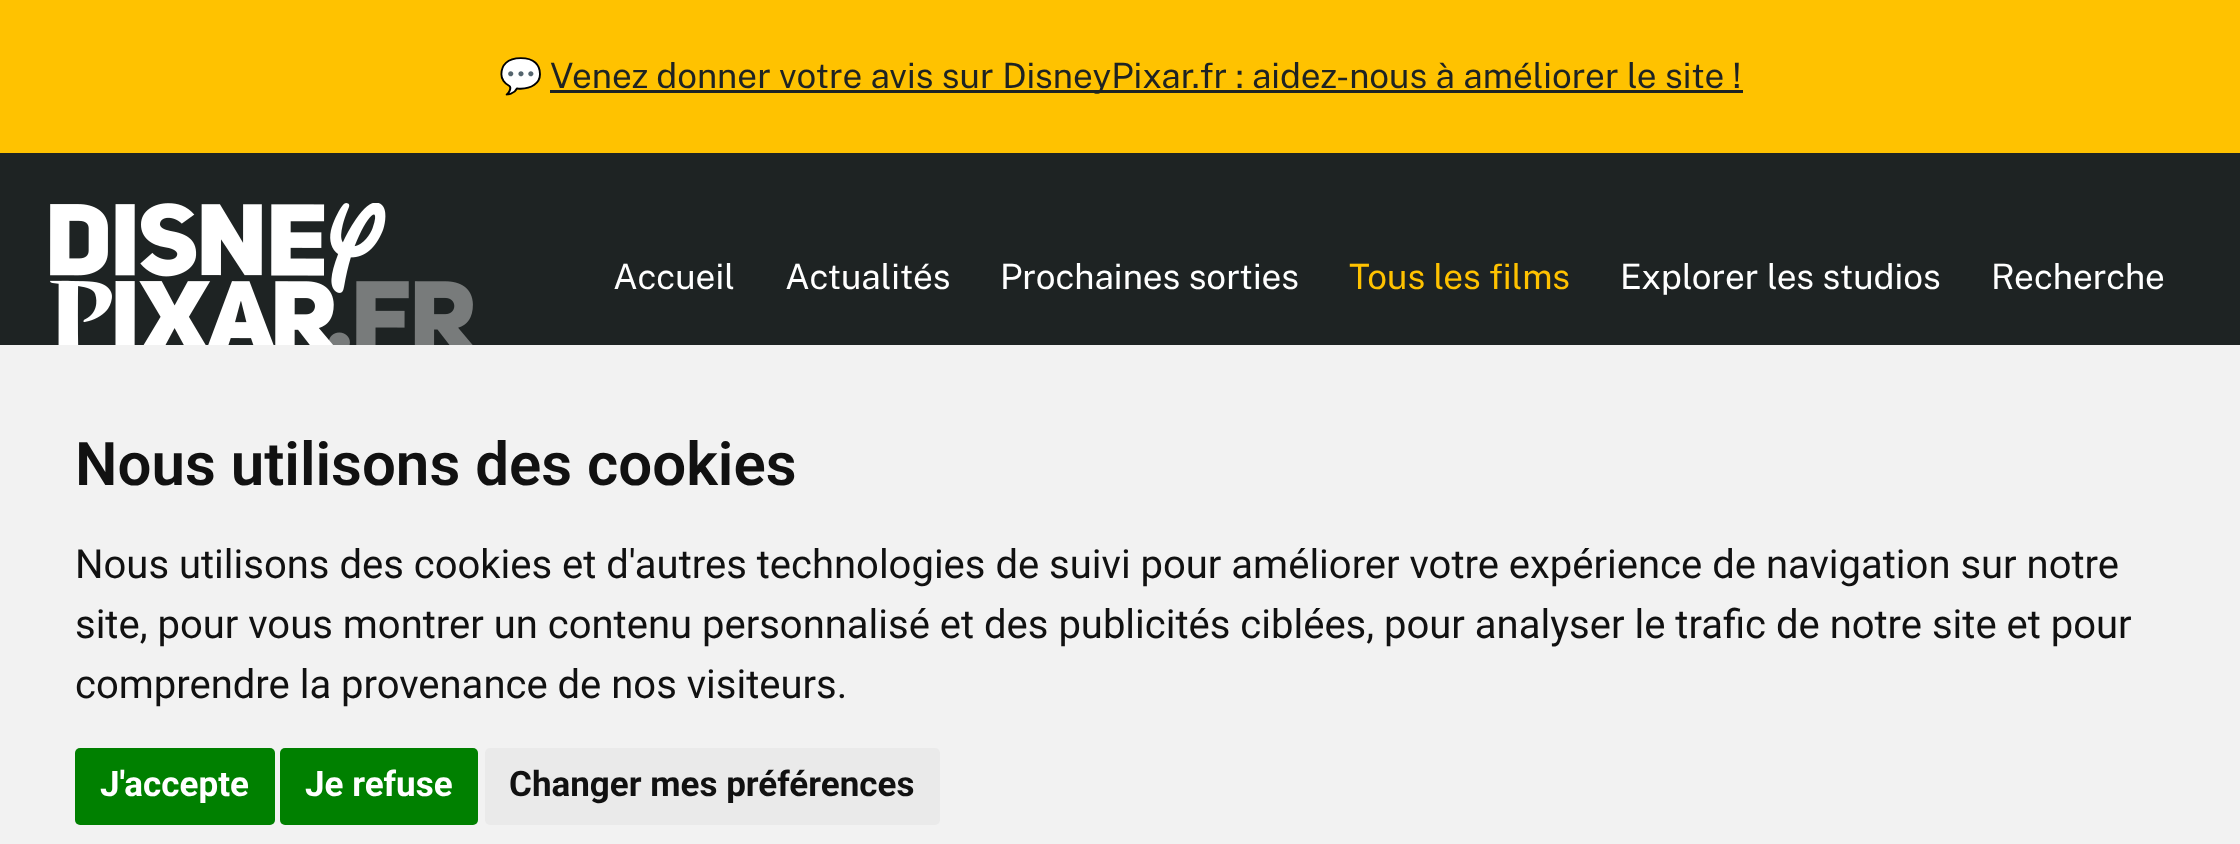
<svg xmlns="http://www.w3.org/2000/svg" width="2240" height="844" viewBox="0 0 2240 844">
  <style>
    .t1 { font: 35px Noto Color Emoji; fill: #1e2323; }
    .t2 { font: 35px Public Sans; fill: #1e2323; }
    .t3 { font: 35px Public Sans; fill: #fff; }
    .t4 { font: 35px Public Sans; fill: #ffc200; }
    .t5 { font: 600 60px Roboto; fill: #111; }
    .t6 { font: 40px Roboto; fill: #111; }
    .t7 { font: bold 35px Roboto; fill: #fff; }
    .t8 { font: bold 35px Roboto; fill: #111; }
  </style>
  <rect width="100%" height="100%" fill="#1e2323"/>
  <rect x="0" y="0" width="2240" height="153" fill="#ffc200"/>
  <text x="499" y="88" class="t1">💬</text>
  <rect x="550" y="90" width="1193" height="3" fill="#1e2323"/>
  <text x="550" y="88" class="t2">Venez donner votre avis sur DisneyPixar.fr : aidez-nous à améliorer le site !</text>
  <image x="50" y="203" width="423" height="142" href="images/1.png"/>
  <text x="613" y="289" class="t3">Accueil</text>
  <text x="785" y="289" class="t3">Actualités</text>
  <text x="1000" y="289" class="t3">Prochaines sorties</text>
  <text x="1349" y="289" class="t4">Tous les films</text>
  <text x="1620" y="289" class="t3">Explorer les studios</text>
  <text x="1991" y="289" class="t3">Recherche</text>
  <rect x="0" y="345" width="2240" height="499" fill="#f2f2f2"/>
  <text x="75" y="485" class="t5">Nous utilisons des cookies</text>
  <text x="75" y="578" class="t6">Nous utilisons des cookies et d'autres technologies de suivi pour améliorer votre expérience de navigation sur notre</text>
  <text x="75" y="638" class="t6">site, pour vous montrer un contenu personnalisé et des publicités ciblées, pour analyser le trafic de notre site et pour</text>
  <text x="75" y="698" class="t6">comprendre la provenance de nos visiteurs.</text>
  <rect x="75" y="748" width="200" height="77" rx="5" fill="#008000"/>
  <text x="100" y="796" class="t7">J'accepte</text>
  <rect x="280" y="748" width="198" height="77" rx="5" fill="#008000"/>
  <text x="305" y="796" class="t7">Je refuse</text>
  <rect x="485" y="748" width="455" height="77" rx="5" fill="#eaeaea"/>
  <text x="509" y="796" class="t8">Changer mes préférences</text>
</svg>
